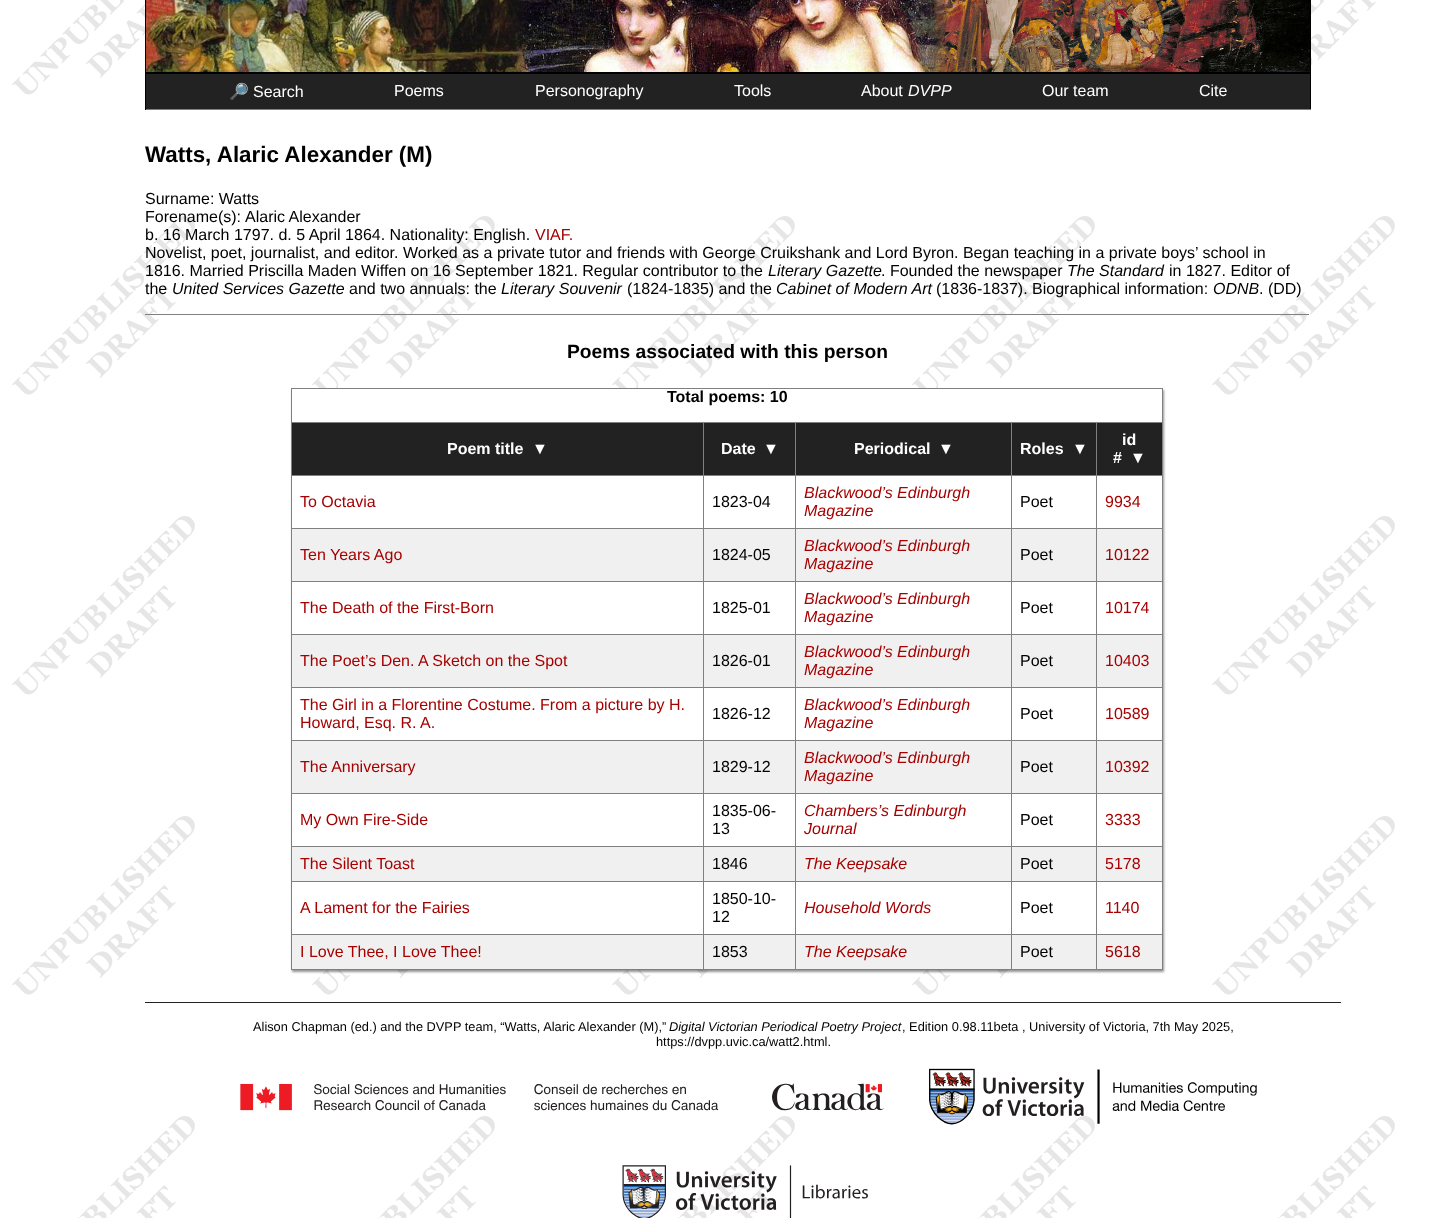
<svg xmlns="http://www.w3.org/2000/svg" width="1454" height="1218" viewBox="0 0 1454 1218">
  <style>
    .t1 { font: 16px Noto Color Emoji; fill: #fff; }
    .t2 { font: 16px Liberation Sans; fill: #fff; }
    .t3 { font: italic 16px Liberation Sans; fill: #fff; }
    .t4 { font: bold 22.4px Liberation Sans; fill: #000; }
    .t5 { font: 16px Liberation Sans; fill: #000; }
    .t6 { font: 16px Liberation Sans; fill: #a60000; }
    .t7 { font: italic 16px Liberation Sans; fill: #000; }
    .t8 { font: bold 19.25px Liberation Sans; fill: #000; }
    .t9 { font: bold 16px Liberation Sans; fill: #000; }
    .t10 { font: bold 16px Liberation Sans; fill: #fff; }
    .t11 { font: italic 16px Liberation Sans; fill: #a60000; }
    .t12 { font: 12.8px Liberation Sans; fill: #000; }
    .t13 { font: italic 12.8px Liberation Sans; fill: #000; }
  </style>
  <rect width="100%" height="100%" fill="#fff"/>
  <image x="12" y="0" width="1383" height="1218" href="images/1.png"/>
  <image x="146" y="0" width="1164" height="72" href="images/2.png"/>
  <rect x="145.5" y="-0.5" width="1165" height="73" fill="none" stroke="#000"/>
  <rect x="146" y="74" width="1164" height="35" fill="#222"/>
  <rect x="145" y="73" width="1166" height="1" fill="#000"/>
  <rect x="1310" y="73" width="1" height="37" fill="#000"/>
  <rect x="145" y="109" width="1166" height="1" fill="#808080"/>
  <rect x="145" y="73" width="1" height="37" fill="#000"/>
  <text x="229" y="97" class="t1">🔎</text>
  <text x="253" y="97" class="t2">Search</text>
  <text x="394" y="96" class="t2">Poems</text>
  <text x="535" y="96" class="t2">Personography</text>
  <text x="734" y="96" class="t2">Tools</text>
  <text x="861" y="96" class="t2">About</text>
  <text x="908" y="96" class="t3">DVPP</text>
  <text x="1042" y="96" class="t2">Our team</text>
  <text x="1199" y="96" class="t2">Cite</text>
  <text x="145" y="162" class="t4">Watts, Alaric Alexander (M)</text>
  <text x="145" y="204" class="t5">Surname: Watts</text>
  <text x="145" y="222" class="t5">Forename(s):</text>
  <text x="245" y="222" class="t5">Alaric Alexander</text>
  <text x="145" y="240" class="t5">b. 16 March 1797. d. 5 April 1864. Nationality: English.</text>
  <text x="535" y="240" class="t6">VIAF.</text>
  <text x="145" y="258" class="t5">Novelist, poet, journalist, and editor. Worked as a private tutor and friends with George Cruikshank and Lord Byron. Began teaching in a private boys’ school in</text>
  <text x="145" y="276" class="t5">1816. Married Priscilla Maden Wiffen on 16 September 1821. Regular contributor to the</text>
  <text x="768" y="276" class="t7">Literary Gazette</text>
  <text x="881" y="276" class="t5">. Founded the newspaper</text>
  <text x="1067" y="276" class="t7">The Standard</text>
  <text x="1169" y="276" class="t5">in 1827. Editor of</text>
  <text x="145" y="294" class="t5">the</text>
  <text x="172" y="294" class="t7">United Services Gazette</text>
  <text x="349" y="294" class="t5">and two annuals: the</text>
  <text x="501" y="294" class="t7">Literary Souvenir</text>
  <text x="627" y="294" class="t5">(1824-1835) and the</text>
  <text x="776" y="294" class="t7">Cabinet of Modern Art</text>
  <text x="936" y="294" class="t5">(1836-1837). Biographical information:</text>
  <text x="1213" y="294" class="t7">ODNB</text>
  <text x="1259" y="294" class="t5">. (DD)</text>
  <rect x="145" y="314" width="1164" height="1" fill="#808080"/>
  <text x="567" y="358" class="t8">Poems associated with this person</text>
  <rect x="292" y="390" width="872" height="582" fill="#0000006b" filter="blur(1px)"/>
  <rect x="292" y="389" width="870" height="545" fill="#fff"/>
  <rect x="291" y="388" width="872" height="1" fill="#808080"/>
  <rect x="1162" y="388" width="1" height="582" fill="#808080"/>
  <rect x="291" y="969" width="872" height="1" fill="#808080"/>
  <rect x="291" y="388" width="1" height="582" fill="#808080"/>
  <text x="667" y="402" class="t9">Total poems: 10</text>
  <rect x="292" y="423" width="411" height="52" fill="#222"/>
  <rect x="1096" y="422" width="67" height="1" fill="#808080"/>
  <rect x="1096" y="475" width="67" height="1" fill="#808080"/>
  <rect x="1096" y="528" width="67" height="1" fill="#808080"/>
  <rect x="292" y="529" width="870" height="52" fill="#f0f0f0"/>
  <rect x="1096" y="581" width="67" height="1" fill="#808080"/>
  <rect x="1096" y="634" width="67" height="1" fill="#808080"/>
  <rect x="292" y="635" width="870" height="52" fill="#f0f0f0"/>
  <rect x="1096" y="687" width="67" height="1" fill="#808080"/>
  <rect x="1096" y="740" width="67" height="1" fill="#808080"/>
  <rect x="292" y="741" width="870" height="52" fill="#f0f0f0"/>
  <rect x="1096" y="793" width="67" height="1" fill="#808080"/>
  <rect x="1096" y="846" width="67" height="1" fill="#808080"/>
  <rect x="292" y="847" width="870" height="34" fill="#f0f0f0"/>
  <rect x="1096" y="881" width="67" height="1" fill="#808080"/>
  <rect x="1096" y="934" width="67" height="1" fill="#808080"/>
  <rect x="292" y="935" width="870" height="34" fill="#f0f0f0"/>
  <rect x="1096" y="934" width="1" height="36" fill="#808080"/>
  <rect x="1011" y="934" width="86" height="1" fill="#808080"/>
  <rect x="1096" y="881" width="1" height="54" fill="#808080"/>
  <rect x="1011" y="881" width="86" height="1" fill="#808080"/>
  <rect x="1096" y="846" width="1" height="36" fill="#808080"/>
  <rect x="1011" y="846" width="86" height="1" fill="#808080"/>
  <rect x="1096" y="793" width="1" height="54" fill="#808080"/>
  <rect x="1011" y="793" width="86" height="1" fill="#808080"/>
  <rect x="1096" y="740" width="1" height="54" fill="#808080"/>
  <rect x="1011" y="740" width="86" height="1" fill="#808080"/>
  <rect x="1096" y="687" width="1" height="54" fill="#808080"/>
  <rect x="1011" y="687" width="86" height="1" fill="#808080"/>
  <rect x="1096" y="634" width="1" height="54" fill="#808080"/>
  <rect x="1011" y="634" width="86" height="1" fill="#808080"/>
  <rect x="1096" y="581" width="1" height="54" fill="#808080"/>
  <rect x="1011" y="581" width="86" height="1" fill="#808080"/>
  <rect x="1096" y="528" width="1" height="54" fill="#808080"/>
  <rect x="1011" y="528" width="86" height="1" fill="#808080"/>
  <rect x="1096" y="475" width="1" height="54" fill="#808080"/>
  <rect x="1011" y="475" width="86" height="1" fill="#808080"/>
  <rect x="1096" y="422" width="1" height="54" fill="#808080"/>
  <rect x="1011" y="422" width="86" height="1" fill="#808080"/>
  <rect x="1011" y="934" width="1" height="36" fill="#808080"/>
  <rect x="795" y="934" width="217" height="1" fill="#808080"/>
  <rect x="1011" y="881" width="1" height="54" fill="#808080"/>
  <rect x="795" y="881" width="217" height="1" fill="#808080"/>
  <rect x="1011" y="846" width="1" height="36" fill="#808080"/>
  <rect x="795" y="846" width="217" height="1" fill="#808080"/>
  <rect x="1011" y="793" width="1" height="54" fill="#808080"/>
  <rect x="795" y="793" width="217" height="1" fill="#808080"/>
  <rect x="1011" y="740" width="1" height="54" fill="#808080"/>
  <rect x="795" y="740" width="217" height="1" fill="#808080"/>
  <rect x="1011" y="687" width="1" height="54" fill="#808080"/>
  <rect x="795" y="687" width="217" height="1" fill="#808080"/>
  <rect x="1011" y="634" width="1" height="54" fill="#808080"/>
  <rect x="795" y="634" width="217" height="1" fill="#808080"/>
  <rect x="1011" y="581" width="1" height="54" fill="#808080"/>
  <rect x="795" y="581" width="217" height="1" fill="#808080"/>
  <rect x="1011" y="528" width="1" height="54" fill="#808080"/>
  <rect x="795" y="528" width="217" height="1" fill="#808080"/>
  <rect x="1011" y="475" width="1" height="54" fill="#808080"/>
  <rect x="795" y="475" width="217" height="1" fill="#808080"/>
  <rect x="1011" y="422" width="1" height="54" fill="#808080"/>
  <rect x="795" y="422" width="217" height="1" fill="#808080"/>
  <rect x="795" y="934" width="1" height="36" fill="#808080"/>
  <rect x="703" y="934" width="93" height="1" fill="#808080"/>
  <rect x="795" y="881" width="1" height="54" fill="#808080"/>
  <rect x="703" y="881" width="93" height="1" fill="#808080"/>
  <rect x="795" y="846" width="1" height="36" fill="#808080"/>
  <rect x="703" y="846" width="93" height="1" fill="#808080"/>
  <rect x="795" y="793" width="1" height="54" fill="#808080"/>
  <rect x="703" y="793" width="93" height="1" fill="#808080"/>
  <rect x="795" y="740" width="1" height="54" fill="#808080"/>
  <rect x="703" y="740" width="93" height="1" fill="#808080"/>
  <rect x="795" y="687" width="1" height="54" fill="#808080"/>
  <rect x="703" y="687" width="93" height="1" fill="#808080"/>
  <rect x="795" y="634" width="1" height="54" fill="#808080"/>
  <rect x="703" y="634" width="93" height="1" fill="#808080"/>
  <rect x="795" y="581" width="1" height="54" fill="#808080"/>
  <rect x="703" y="581" width="93" height="1" fill="#808080"/>
  <rect x="795" y="528" width="1" height="54" fill="#808080"/>
  <rect x="703" y="528" width="93" height="1" fill="#808080"/>
  <rect x="795" y="475" width="1" height="54" fill="#808080"/>
  <rect x="703" y="475" width="93" height="1" fill="#808080"/>
  <rect x="795" y="422" width="1" height="54" fill="#808080"/>
  <rect x="703" y="422" width="93" height="1" fill="#808080"/>
  <rect x="703" y="934" width="1" height="36" fill="#808080"/>
  <rect x="291" y="934" width="413" height="1" fill="#808080"/>
  <rect x="703" y="881" width="1" height="54" fill="#808080"/>
  <rect x="291" y="881" width="413" height="1" fill="#808080"/>
  <rect x="703" y="846" width="1" height="36" fill="#808080"/>
  <rect x="291" y="846" width="413" height="1" fill="#808080"/>
  <rect x="703" y="793" width="1" height="54" fill="#808080"/>
  <rect x="291" y="793" width="413" height="1" fill="#808080"/>
  <rect x="703" y="740" width="1" height="54" fill="#808080"/>
  <rect x="291" y="740" width="413" height="1" fill="#808080"/>
  <rect x="703" y="687" width="1" height="54" fill="#808080"/>
  <rect x="291" y="687" width="413" height="1" fill="#808080"/>
  <rect x="703" y="634" width="1" height="54" fill="#808080"/>
  <rect x="291" y="634" width="413" height="1" fill="#808080"/>
  <rect x="703" y="581" width="1" height="54" fill="#808080"/>
  <rect x="291" y="581" width="413" height="1" fill="#808080"/>
  <rect x="703" y="528" width="1" height="54" fill="#808080"/>
  <rect x="291" y="528" width="413" height="1" fill="#808080"/>
  <rect x="703" y="475" width="1" height="54" fill="#808080"/>
  <rect x="291" y="475" width="413" height="1" fill="#808080"/>
  <rect x="703" y="422" width="1" height="54" fill="#808080"/>
  <rect x="291" y="422" width="413" height="1" fill="#808080"/>
  <text x="447" y="454" class="t10">Poem title</text>
  <text x="532" y="454" class="t10">▼</text>
  <rect x="704" y="423" width="91" height="52" fill="#222"/>
  <text x="721" y="454" class="t10">Date</text>
  <text x="763" y="454" class="t10">▼</text>
  <rect x="796" y="423" width="215" height="52" fill="#222"/>
  <text x="854" y="454" class="t10">Periodical</text>
  <text x="938" y="454" class="t10">▼</text>
  <rect x="1012" y="423" width="84" height="52" fill="#222"/>
  <text x="1020" y="454" class="t10">Roles</text>
  <text x="1072" y="454" class="t10">▼</text>
  <rect x="1097" y="423" width="65" height="52" fill="#222"/>
  <text x="1122" y="445" class="t10">id</text>
  <text x="1113" y="463" class="t10">#</text>
  <text x="1130" y="463" class="t10">▼</text>
  <text x="300" y="507" class="t6">To Octavia</text>
  <text x="712" y="507" class="t5">1823-04</text>
  <text x="804" y="498" class="t11">Blackwood’s Edinburgh</text>
  <text x="804" y="516" class="t11">Magazine</text>
  <text x="1020" y="507" class="t5">Poet</text>
  <text x="1105" y="507" class="t6">9934</text>
  <text x="300" y="560" class="t6">Ten Years Ago</text>
  <text x="712" y="560" class="t5">1824-05</text>
  <text x="804" y="551" class="t11">Blackwood’s Edinburgh</text>
  <text x="804" y="569" class="t11">Magazine</text>
  <text x="1020" y="560" class="t5">Poet</text>
  <text x="1105" y="560" class="t6">10122</text>
  <text x="300" y="613" class="t6">The Death of the First-Born</text>
  <text x="712" y="613" class="t5">1825-01</text>
  <text x="804" y="604" class="t11">Blackwood’s Edinburgh</text>
  <text x="804" y="622" class="t11">Magazine</text>
  <text x="1020" y="613" class="t5">Poet</text>
  <text x="1105" y="613" class="t6">10174</text>
  <text x="300" y="666" class="t6">The Poet’s Den. A Sketch on the Spot</text>
  <text x="712" y="666" class="t5">1826-01</text>
  <text x="804" y="657" class="t11">Blackwood’s Edinburgh</text>
  <text x="804" y="675" class="t11">Magazine</text>
  <text x="1020" y="666" class="t5">Poet</text>
  <text x="1105" y="666" class="t6">10403</text>
  <text x="300" y="710" class="t6">The Girl in a Florentine Costume. From a picture by H.</text>
  <text x="300" y="728" class="t6">Howard, Esq. R. A.</text>
  <text x="712" y="719" class="t5">1826-12</text>
  <text x="804" y="710" class="t11">Blackwood’s Edinburgh</text>
  <text x="804" y="728" class="t11">Magazine</text>
  <text x="1020" y="719" class="t5">Poet</text>
  <text x="1105" y="719" class="t6">10589</text>
  <text x="300" y="772" class="t6">The Anniversary</text>
  <text x="712" y="772" class="t5">1829-12</text>
  <text x="804" y="763" class="t11">Blackwood’s Edinburgh</text>
  <text x="804" y="781" class="t11">Magazine</text>
  <text x="1020" y="772" class="t5">Poet</text>
  <text x="1105" y="772" class="t6">10392</text>
  <text x="300" y="825" class="t6">My Own Fire-Side</text>
  <text x="712" y="816" class="t5">1835-06-</text>
  <text x="712" y="834" class="t5">13</text>
  <text x="804" y="816" class="t11">Chambers’s Edinburgh</text>
  <text x="804" y="834" class="t11">Journal</text>
  <text x="1020" y="825" class="t5">Poet</text>
  <text x="1105" y="825" class="t6">3333</text>
  <text x="300" y="869" class="t6">The Silent Toast</text>
  <text x="712" y="869" class="t5">1846</text>
  <text x="804" y="869" class="t11">The Keepsake</text>
  <text x="1020" y="869" class="t5">Poet</text>
  <text x="1105" y="869" class="t6">5178</text>
  <text x="300" y="913" class="t6">A Lament for the Fairies</text>
  <text x="712" y="904" class="t5">1850-10-</text>
  <text x="712" y="922" class="t5">12</text>
  <text x="804" y="913" class="t11">Household Words</text>
  <text x="1020" y="913" class="t5">Poet</text>
  <text x="1105" y="913" class="t6">1140</text>
  <text x="300" y="957" class="t6">I Love Thee, I Love Thee!</text>
  <text x="712" y="957" class="t5">1853</text>
  <text x="804" y="957" class="t11">The Keepsake</text>
  <text x="1020" y="957" class="t5">Poet</text>
  <text x="1105" y="957" class="t6">5618</text>
  <rect x="145" y="1002" width="1196" height="1" fill="#222"/>
  <text x="253" y="1031" class="t12">Alison Chapman (ed.) and the DVPP team, “Watts, Alaric Alexander (M),”</text>
  <text x="669" y="1031" class="t13">Digital Victorian Periodical Poetry Project</text>
  <text x="902" y="1031" class="t12">, Edition 0.98.11beta , University of Victoria, 7th May 2025,</text>
  <text x="656" y="1046" class="t12">https://dvpp.uvic.ca/watt2.html.</text>
  <image x="240" y="1083" width="644" height="28" href="images/3.png"/>
  <image x="929" y="1068" width="328" height="57" href="images/4.png"/>
  <image x="622" y="1165" width="246" height="53" href="images/5.png"/>
</svg>
